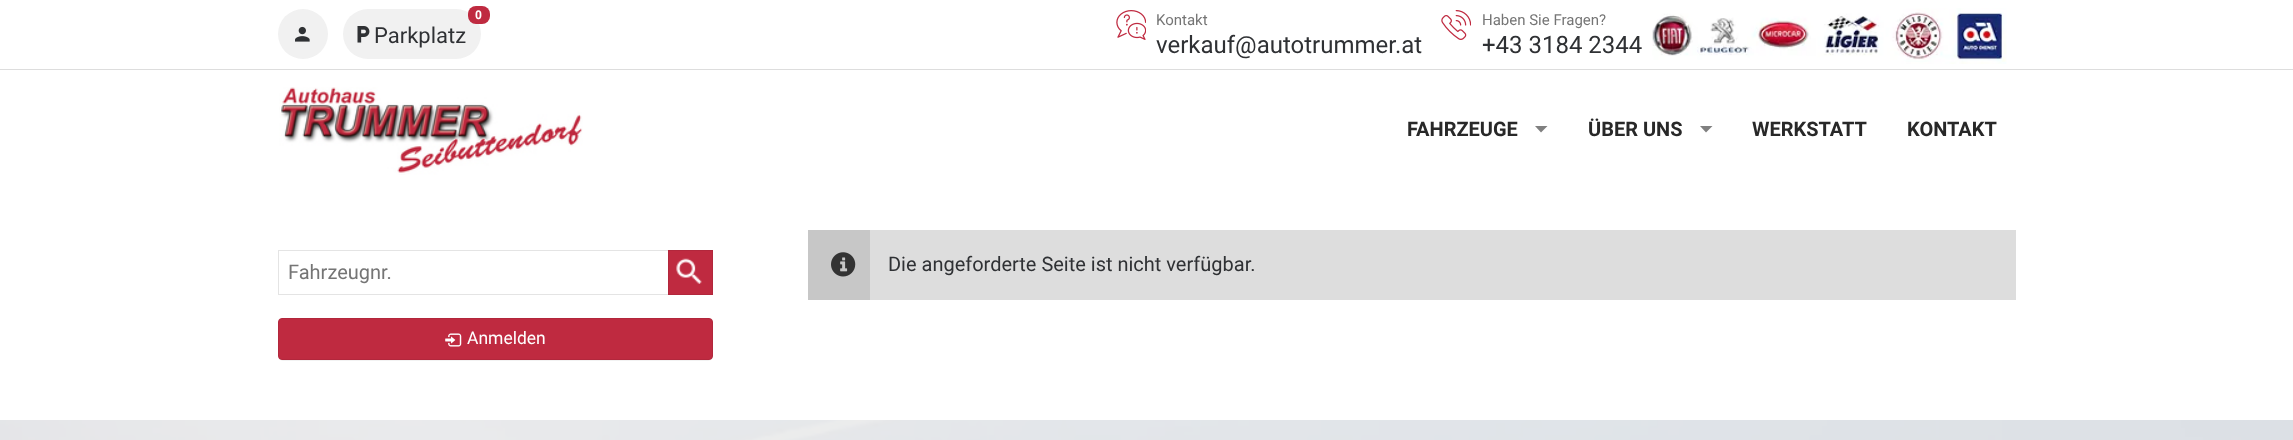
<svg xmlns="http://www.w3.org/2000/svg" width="2293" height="440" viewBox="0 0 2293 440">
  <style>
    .t1 { font: bold 12px Roboto; fill: #fff; }
    .t2 { font: 22px Roboto; fill: #2f3134; }
    .t3 { font: 15px Roboto; fill: #757575; }
    .t4 { font: 24px Roboto; fill: #2f3134; }
    .t5 { font: bold 20px Roboto; fill: #282828; }
    .t6 { font: 20px Roboto; fill: #757575; }
    .t7 { font: 17.5px Roboto; fill: #fff; }
    .t8 { font: 20px Roboto; fill: #2f3134; }
  </style>
  <rect width="100%" height="100%" fill="#fff"/>
  <rect x="0" y="69" width="2293" height="1" fill="#ddd"/>
  <circle cx="303" cy="34" r="25" fill="#f1f1f1"/>
  <image x="295" y="26" width="15" height="16" href="images/1.png"/>
  <rect x="343" y="9" width="138" height="50" rx="25" fill="#f1f1f1"/>
  <rect x="468" y="6" width="22" height="18" rx="8" fill="#bf2a40"/>
  <text x="475" y="19" class="t1">0</text>
  <image x="357" y="26" width="13" height="17" href="images/2.png"/>
  <text x="374" y="43" class="t2">Parkplatz</text>
  <image x="1116" y="10" width="30" height="30" href="images/3.png"/>
  <text x="1156" y="25" class="t3">Kontakt</text>
  <text x="1156" y="53" class="t4">verkauf@autotrummer.at</text>
  <image x="1441" y="10" width="30" height="30" href="images/4.png"/>
  <text x="1482" y="25" class="t3">Haben Sie Fragen?</text>
  <text x="1482" y="53" class="t4">+43 3184 2344</text>
  <image x="1652" y="8" width="355" height="56" href="images/5.png"/>
  <image x="279" y="87" width="304" height="88" href="images/6.png"/>
  <text x="1407" y="136" class="t5">FAHRZEUGE</text>
  <path d="M1535 126H1547.5L1541 132.5Z" fill="#808080"/>
  <text x="1588" y="136" class="t5">ÜBER UNS</text>
  <path d="M1700 126H1712.5L1706 132.5Z" fill="#808080"/>
  <text x="1752" y="136" class="t5">WERKSTATT</text>
  <text x="1907" y="136" class="t5">KONTAKT</text>
  <rect x="278.5" y="250.5" width="434" height="44" fill="none" stroke="#e4e4e4"/>
  <text x="288" y="279" class="t6">Fahrzeugnr.</text>
  <rect x="669" y="251" width="43" height="43" fill="#bf2a40"/>
  <image x="676" y="258" width="26" height="26" href="images/7.png"/>
  <rect x="668.5" y="250.5" width="44" height="44" fill="none" stroke="#b2273c"/>
  <rect x="278" y="319" width="435" height="42" rx="5" fill="#0000000d" filter="blur(0.5px)"/>
  <rect x="278.5" y="318.5" width="434" height="41" rx="3.5" fill="#bf2a40" stroke="#b2273c"/>
  <image x="445" y="333" width="17" height="14" href="images/8.png"/>
  <text x="467" y="344" class="t7">Anmelden</text>
  <rect x="870" y="230" width="1146" height="70" fill="#ddd"/>
  <rect x="808" y="230" width="62" height="70" fill="#c7c7c7"/>
  <image x="831" y="252" width="25" height="25" href="images/9.png"/>
  <text x="888" y="271" class="t8">Die angeforderte Seite ist nicht verfügbar.</text>
  <rect x="0" y="420" width="2293" height="20" fill="#eaeaea"/>
  <image x="0" y="420" width="2293" height="20" href="images/10.png"/>
</svg>
